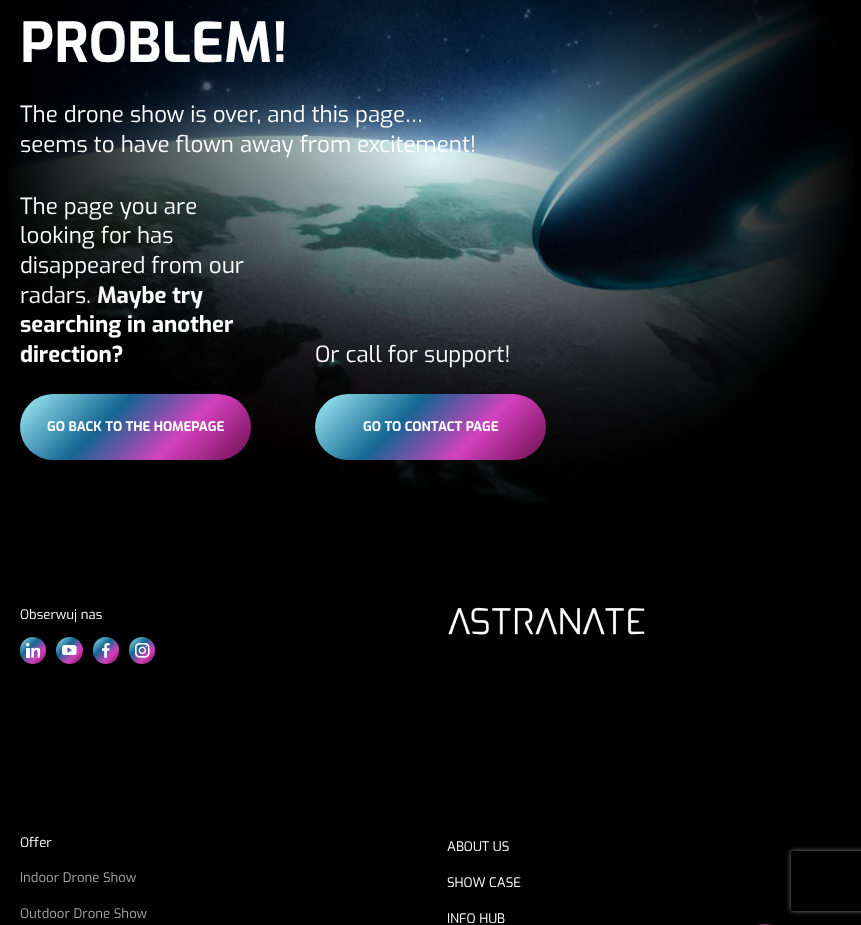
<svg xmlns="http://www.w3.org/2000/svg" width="861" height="925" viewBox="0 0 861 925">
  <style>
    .t1 { font: bold 55px Exo; fill: #fff; }
    .t2 { font: 22.3px Exo; fill: #fff; }
    .t3 { font: bold 22.3px Exo; fill: #fff; }
    .t4 { font: bold 13.2px Exo; fill: #fff; }
    .t5 { font: 13.2px Exo; fill: #fff; }
    .t6 { font: 13.2px Exo; fill: #a4a4a4; }
  </style>
  <defs>
    <linearGradient id="g1" gradientUnits="userSpaceOnUse" x1="61" y1="353" x2="210" y2="501"><stop offset="0" stop-color="#a2eff7"/><stop offset="0.38" stop-color="#146592"/><stop offset="0.68" stop-color="#d341bd"/><stop offset="1" stop-color="#6e0e51"/></linearGradient>
    <linearGradient id="g2" gradientUnits="userSpaceOnUse" x1="356" y1="353" x2="505" y2="501"><stop offset="0" stop-color="#a2eff7"/><stop offset="0.38" stop-color="#146592"/><stop offset="0.68" stop-color="#d341bd"/><stop offset="1" stop-color="#6e0e51"/></linearGradient>
    <linearGradient id="g3" gradientUnits="userSpaceOnUse" x1="20" y1="637" x2="46" y2="664"><stop offset="0" stop-color="#a2eff7"/><stop offset="0.38" stop-color="#146592"/><stop offset="0.68" stop-color="#d341bd"/><stop offset="1" stop-color="#6e0e51"/></linearGradient>
    <linearGradient id="g4" gradientUnits="userSpaceOnUse" x1="56" y1="637" x2="83" y2="664"><stop offset="0" stop-color="#a2eff7"/><stop offset="0.38" stop-color="#146592"/><stop offset="0.68" stop-color="#d341bd"/><stop offset="1" stop-color="#6e0e51"/></linearGradient>
    <linearGradient id="g5" gradientUnits="userSpaceOnUse" x1="93" y1="637" x2="119" y2="664"><stop offset="0" stop-color="#a2eff7"/><stop offset="0.38" stop-color="#146592"/><stop offset="0.68" stop-color="#d341bd"/><stop offset="1" stop-color="#6e0e51"/></linearGradient>
    <linearGradient id="g6" gradientUnits="userSpaceOnUse" x1="129" y1="637" x2="155" y2="664"><stop offset="0" stop-color="#a2eff7"/><stop offset="0.38" stop-color="#146592"/><stop offset="0.68" stop-color="#d341bd"/><stop offset="1" stop-color="#6e0e51"/></linearGradient>
    <clipPath id="clip1"><path d="M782 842H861V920H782ZM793 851H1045C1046 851 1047 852 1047 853V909C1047 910 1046 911 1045 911H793C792 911 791 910 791 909V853C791 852 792 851 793 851Z" clip-rule="evenodd"/></clipPath>
  </defs>
  <rect width="100%" height="100%" fill="#000"/>
  <image x="8" y="0" width="845" height="503" href="images/1.png"/>
  <text x="20" y="62" class="t1">PROBLEM!</text>
  <text x="20" y="122" class="t2">The drone show is over, and this page…</text>
  <text x="20" y="152" class="t2">seems to have flown away from excitement!</text>
  <text x="20" y="214" class="t2">The page you are</text>
  <text x="20" y="243" class="t2">looking for has</text>
  <text x="20" y="273" class="t2">disappeared from our</text>
  <text x="20" y="303" class="t2">radars.</text>
  <text x="97" y="303" class="t3">Maybe try</text>
  <text x="20" y="332" class="t3">searching in another</text>
  <text x="20" y="362" class="t3">direction?</text>
  <rect x="20" y="394" width="231" height="66" rx="33" fill="url(#g1)"/>
  <text x="47" y="431" class="t4">GO BACK TO THE HOMEPAGE</text>
  <text x="315" y="362" class="t2">Or call for support!</text>
  <rect x="315" y="394" width="231" height="66" rx="33" fill="url(#g2)"/>
  <text x="363" y="431" class="t4">GO TO CONTACT PAGE</text>
  <text x="20" y="619" class="t5">Obserwuj nas</text>
  <rect x="20" y="637" width="26" height="27" rx="13" fill="url(#g3)"/>
  <image x="26" y="643" width="14" height="15" href="images/2.png"/>
  <circle cx="69.5" cy="650.5" r="13.5" fill="url(#g4)"/>
  <image x="62" y="645" width="15" height="10" href="images/3.png"/>
  <rect x="93" y="637" width="26" height="27" rx="13" fill="url(#g5)"/>
  <image x="102" y="643" width="8" height="15" href="images/4.png"/>
  <rect x="129" y="637" width="26" height="27" rx="13" fill="url(#g6)"/>
  <image x="135" y="643" width="15" height="15" href="images/5.png"/>
  <image x="448" y="607" width="197" height="28" href="images/6.png"/>
  <text x="20" y="847" class="t5">Offer</text>
  <text x="20" y="882" class="t6">Indoor Drone Show</text>
  <text x="20" y="918" class="t6">Outdoor Drone Show</text>
  <text x="447" y="851" class="t5">ABOUT US</text>
  <text x="447" y="887" class="t5">SHOW CASE</text>
  <text x="447" y="923" class="t5">INFO HUB</text>
  <image x="758" y="924" width="14" height="1" href="images/7.png"/>
  <g clip-path="url(#clip1)">
    <rect x="791" y="851" width="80" height="60" rx="2" fill="#808080" filter="blur(2.5px)"/>
  </g>
</svg>
